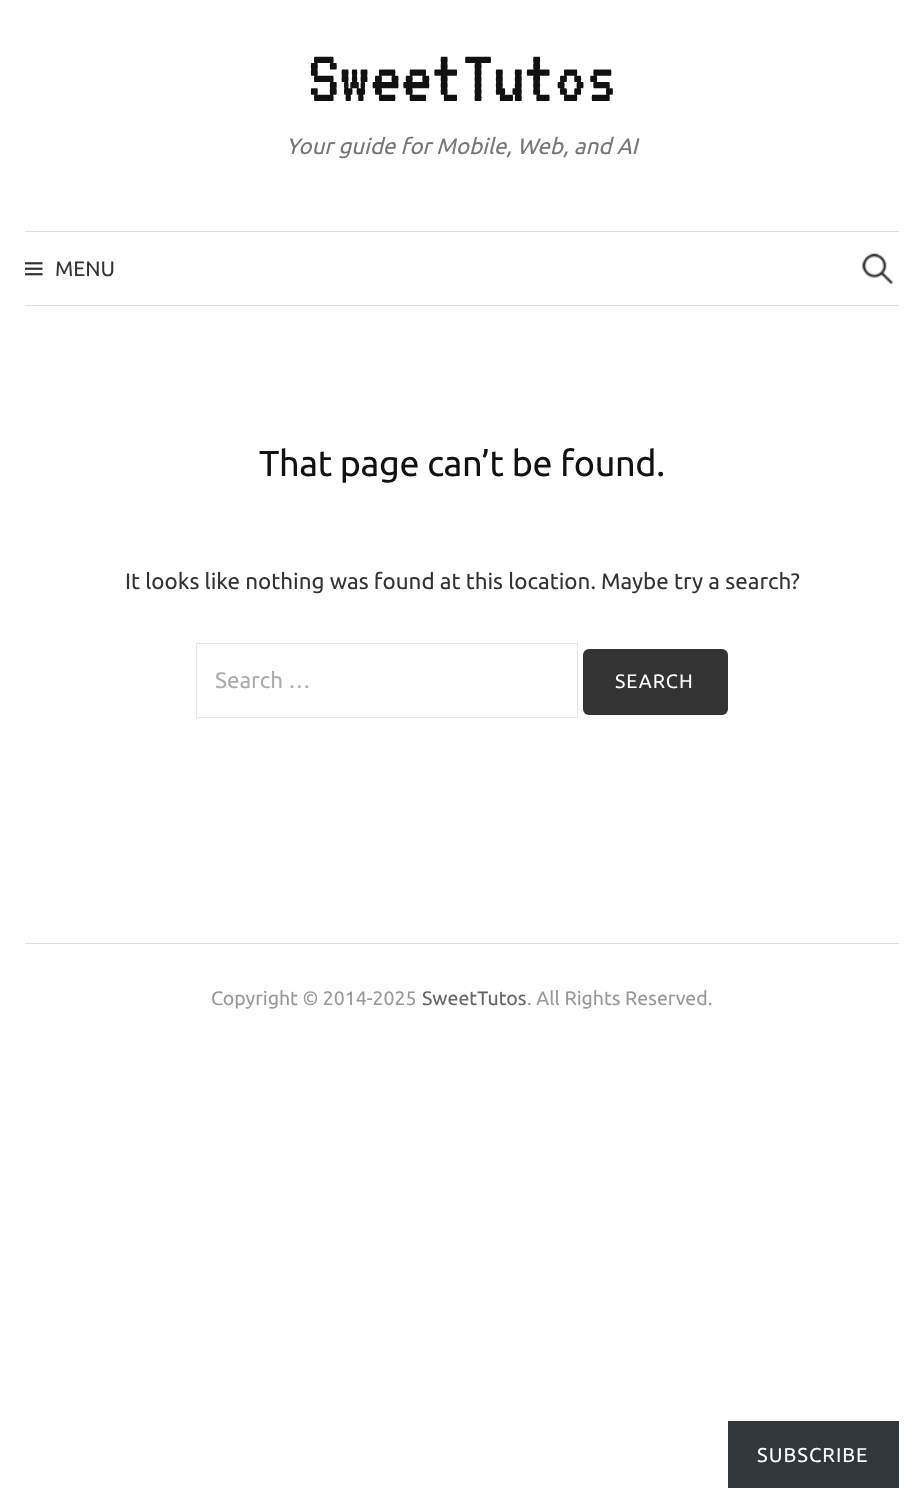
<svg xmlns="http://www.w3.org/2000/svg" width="923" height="1512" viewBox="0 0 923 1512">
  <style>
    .t1 { font: 79px 'VT323'; letter-spacing: -0.75px; fill: #111; }
    .t2 { font: italic 22.4px Ubuntu; fill: #777; }
    .t3 { font: 21px Ubuntu; fill: #333; }
    .t4 { font: 36px Ubuntu; letter-spacing: -0.35px; fill: #111; }
    .t5 { font: 22.4px Ubuntu; fill: #333; }
    .t6 { font: 22.4px Ubuntu; fill: #acacac; }
    .t7 { font: 19.5px Ubuntu; letter-spacing: 1px; fill: #fff; }
    .t8 { font: 19.5px Ubuntu; fill: #999; }
    .t9 { font: 19.5px Ubuntu; fill: #666; }
    .t10 { font: 20px Ubuntu; letter-spacing: 1px; fill: #fff; }
  </style>
  <rect width="100%" height="100%" fill="#fff"/>
  <text x="308" y="101" class="t1">SweetTutos</text>
  <text x="286" y="154" class="t2">Your guide for Mobile, Web, and AI</text>
  <rect x="25" y="231" width="874" height="1" fill="#ddd"/>
  <rect x="25" y="305" width="874" height="1" fill="#ddd"/>
  <image x="25" y="262" width="18" height="14" href="images/1.png"/>
  <text x="55" y="276" class="t3">MENU</text>
  <image x="862" y="253" width="31" height="31" href="images/2.png"/>
  <text x="259" y="476" class="t4">That page can’t be found.</text>
  <text x="125" y="589" class="t5">It looks like nothing was found at this location. Maybe try a search?</text>
  <rect x="196.5" y="643.5" width="381" height="74" fill="none" stroke="#e6e6e6"/>
  <text x="215" y="688" class="t6">Search …</text>
  <rect x="583" y="649" width="145" height="66" rx="6" fill="#333"/>
  <text x="615" y="688" class="t7">SEARCH</text>
  <rect x="25" y="943" width="874" height="1" fill="#ddd"/>
  <text x="211" y="1005" class="t8">Copyright © 2014-2025</text>
  <text x="422" y="1005" class="t9">SweetTutos</text>
  <text x="527" y="1005" class="t8">. All Rights Reserved.</text>
  <rect x="728" y="1421" width="171" height="67" fill="#32373c"/>
  <text x="757" y="1462" class="t10">SUBSCRIBE</text>
</svg>
